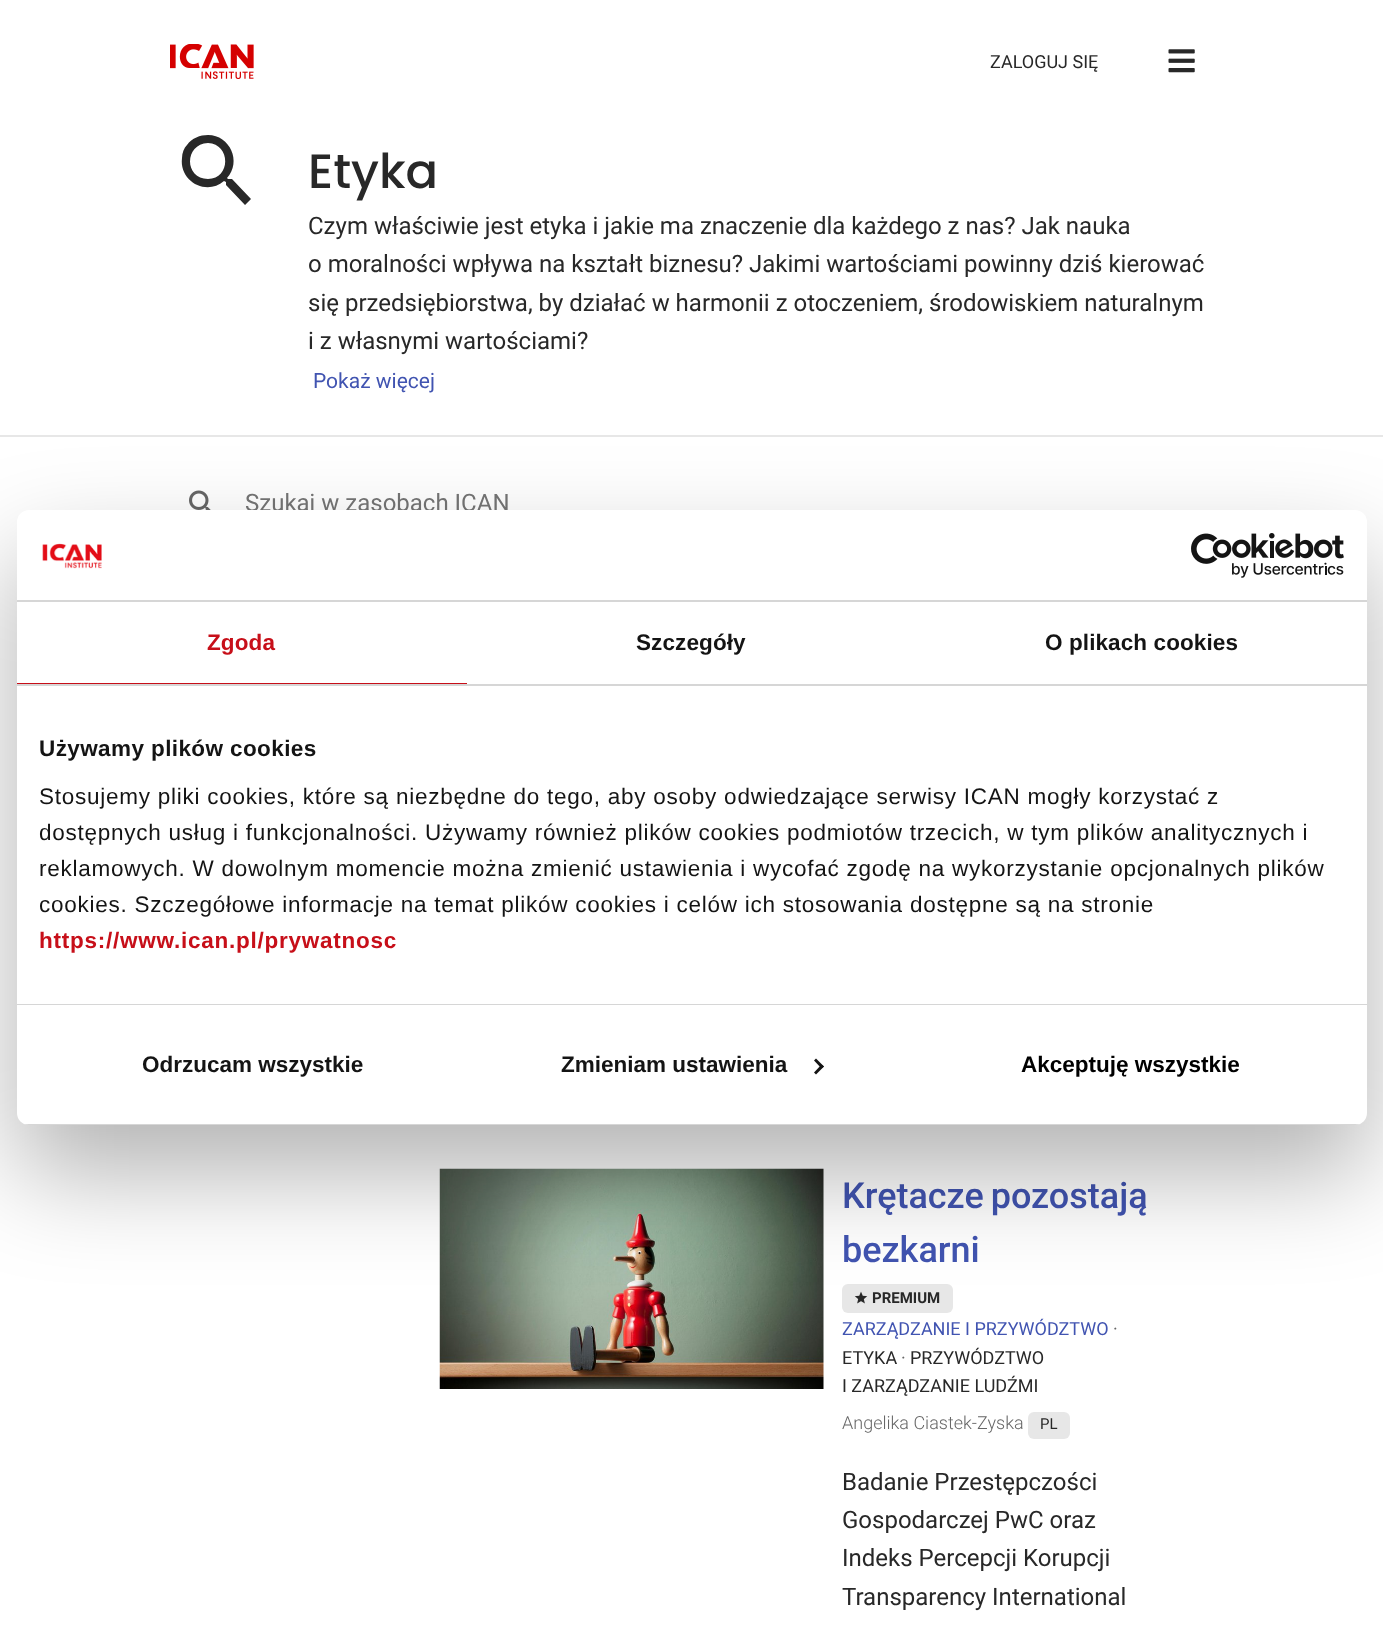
<svg xmlns="http://www.w3.org/2000/svg" width="1383" height="1635" viewBox="0 0 1383 1635">
  <style>
    .t1 { font: 18px Roboto; fill: #282828; }
    .t2 { font: 500 48px Poppins; fill: #282828; }
    .t3 { font: 24px Roboto; fill: #282828; }
    .t4 { font: 21px Roboto; fill: #4154b1; }
    .t5 { font: 24px Roboto; fill: #757575; }
    .t6 { font: 500 36px Roboto; fill: #4154b1; }
    .t7 { font: bold 15px Roboto; fill: #282828; }
    .t8 { font: 18px Roboto; fill: #4154b1; }
    .t9 { font: 18px Roboto; fill: #676767; }
    .t10 { font: 300 18px Roboto; fill: #676767; }
    .t11 { font: 15px Roboto; fill: #282828; }
    .t12 { font: bold 22.5px Liberation Sans; letter-spacing: 0.1px; fill: #c70f19; }
    .t13 { font: bold 22.5px Liberation Sans; letter-spacing: 0.1px; fill: #141414; }
    .t14 { font: bold 22.5px Liberation Sans; letter-spacing: 0.4px; fill: #141414; }
    .t15 { font: 22.5px Liberation Sans; letter-spacing: 0.75px; fill: #141414; }
    .t16 { font: bold 22.5px Liberation Sans; letter-spacing: 0.75px; fill: #c70f19; }
    .t17 { font: bold 22.5px Liberation Sans; fill: #141414; }
    .t18 { font: bold 22.5px Liberation Sans; fill: #000; }
  </style>
  <defs>
    <clipPath id="clip1"><rect x="17" y="510" width="1350" height="615" rx="12"/></clipPath>
  </defs>
  <rect width="100%" height="100%" fill="#fff"/>
  <image x="170" y="44" width="84" height="35" href="images/1.png"/>
  <text x="990" y="68" class="t1">ZALOGUJ SIĘ</text>
  <image x="1168" y="49" width="27" height="24" href="images/2.png"/>
  <rect x="0" y="435" width="1383" height="2" fill="#e7e7e7"/>
  <path d="M208 135C230 135 242 162 227 178L228 179H232L251 199L245 205L226 185V182L224 181C207 196 179 182 182 158C182 153 184 148 187 145C192 138 200 135 208 135ZM208 143C184 144 184 179 208 179C231 179 231 144 208 143Z" fill="#282828"/>
  <text x="308" y="188" class="t2">Etyka</text>
  <text x="308" y="234" class="t3">Czym właściwie jest etyka i jakie ma znaczenie dla każdego z nas? Jak nauka</text>
  <text x="308" y="272" class="t3">o moralności wpływa na kształt biznesu? Jakimi wartościami powinny dziś kierować</text>
  <text x="308" y="311" class="t3">się przedsiębiorstwa, by działać w harmonii z otoczeniem, środowiskiem naturalnym</text>
  <text x="308" y="349" class="t3">i z własnymi wartościami?</text>
  <text x="313" y="388" class="t4">Pokaż więcej</text>
  <image x="189" y="490" width="22" height="20" href="images/3.png"/>
  <text x="245" y="511" class="t5">Szukaj w zasobach ICAN</text>
  <image x="439" y="1168" width="385" height="221" href="images/4.png"/>
  <text x="842" y="1208" word-spacing="-2" class="t6">Krętacze pozostają</text>
  <text x="842" y="1262" class="t6">bezkarni</text>
  <rect x="842" y="1284" width="111" height="29" rx="6" fill="#e7e7e7"/>
  <image x="854" y="1291" width="14" height="13" href="images/5.png"/>
  <text x="872" y="1303" class="t7">PREMIUM</text>
  <text x="842" y="1335" class="t8">ZARZĄDZANIE I PRZYWÓDZTWO</text>
  <text x="1113" y="1335" class="t9">·</text>
  <text x="842" y="1364" class="t1">ETYKA</text>
  <text x="901" y="1364" class="t9">·</text>
  <text x="910" y="1364" class="t1">PRZYWÓDZTWO</text>
  <text x="842" y="1392" class="t1">I ZARZĄDZANIE LUDŹMI</text>
  <text x="842" y="1429" class="t10">Angelika Ciastek-Zyska</text>
  <rect x="1028" y="1412" width="42" height="27" rx="6" fill="#e7e7e7"/>
  <text x="1040" y="1429" class="t11">PL</text>
  <text x="842" y="1490" class="t3">Badanie Przestępczości</text>
  <text x="842" y="1528" class="t3">Gospodarczej PwC oraz</text>
  <text x="842" y="1566" class="t3">Indeks Percepcji Korupcji</text>
  <text x="842" y="1605" class="t3">Transparency International</text>
  <rect x="17" y="558" width="1350" height="615" rx="12" fill="#0000004d" filter="blur(51px)"/>
  <rect x="17" y="510" width="1350" height="615" rx="12" fill="#fff"/>
  <rect x="17" y="600" width="1350" height="2" fill="#d6d6d6"/>
  <image x="42" y="543" width="60" height="26" href="images/6.png"/>
  <image x="1191" y="533" width="153" height="45" href="images/7.png"/>
  <rect x="17" y="684" width="1350" height="2" fill="#d6d6d6"/>
  <rect x="17" y="683" width="450" height="1" fill="#c70f19"/>
  <text x="207" y="650" class="t12">Zgoda</text>
  <text x="636" y="650" class="t13">Szczegóły</text>
  <text x="1045" y="650" class="t13">O plikach cookies</text>
  <rect x="17" y="1004" width="1350" height="1" fill="#d6d6d6"/>
  <text x="39" y="756" class="t14">Używamy plików cookies</text>
  <text x="39" y="804" class="t15">Stosujemy pliki cookies, które są niezbędne do tego, aby osoby odwiedzające serwisy ICAN mogły korzystać z</text>
  <text x="39" y="840" class="t15">dostępnych usług i funkcjonalności. Używamy również plików cookies podmiotów trzecich, w tym plików analitycznych i</text>
  <text x="39" y="876" class="t15">reklamowych. W dowolnym momencie można zmienić ustawienia i wycofać zgodę na wykorzystanie opcjonalnych plików</text>
  <text x="39" y="912" class="t15">cookies. Szczegółowe informacje na temat plików cookies i celów ich stosowania dostępne są na stronie</text>
  <text x="39" y="948" class="t16">https://www.ican.pl/prywatnosc</text>
  <g clip-path="url(#clip1)">
    <rect x="17" y="1124" width="1350" height="1" fill="#d6d6d6"/>
  </g>
  <text x="142" y="1072" class="t17">Odrzucam wszystkie</text>
  <text x="561" y="1072" class="t17">Zmieniam ustawienia</text>
  <path d="M816 1058.5L824 1066.5L821.5 1068.5L814 1060.5Z" fill="#141414"/>
  <path d="M821.5 1064.5L824 1066.5L816 1074.5L814 1072.5Z" fill="#141414"/>
  <text x="1021" y="1072" class="t18">Akceptuję wszystkie</text>
</svg>
